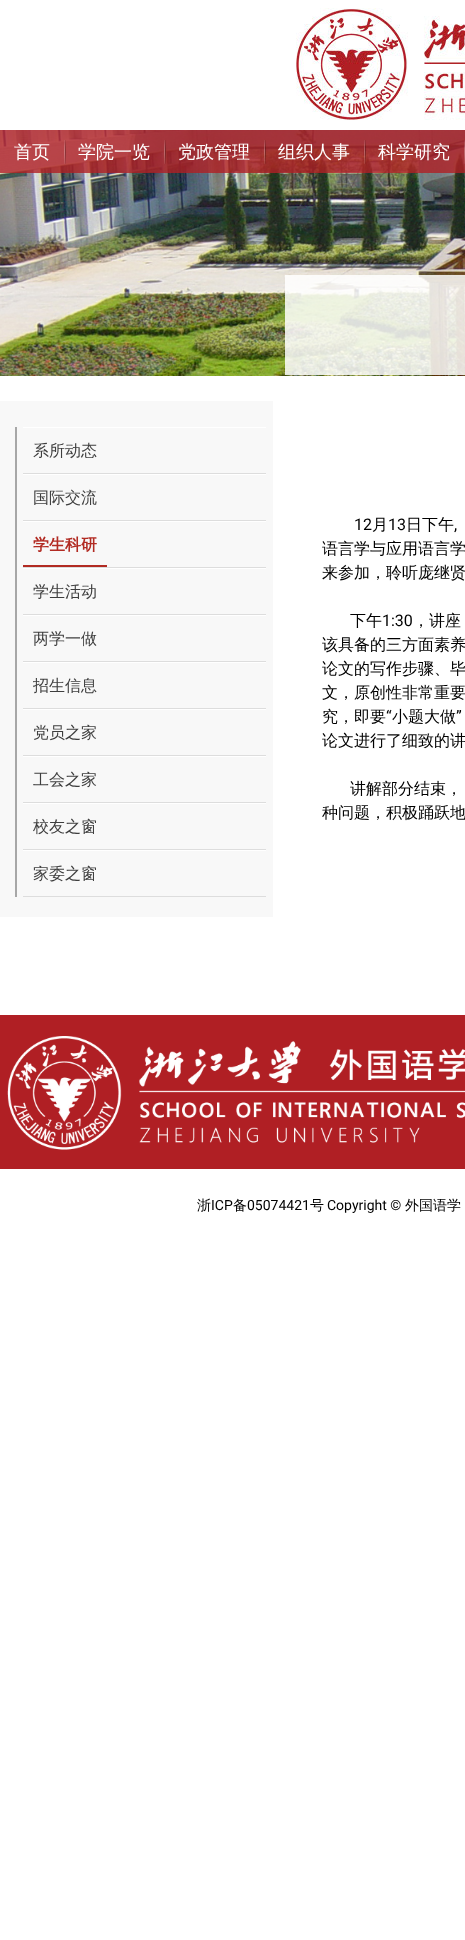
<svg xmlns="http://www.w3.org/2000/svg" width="465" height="1940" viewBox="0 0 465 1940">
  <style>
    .t1 { font: 500 18px WenQuanYi Zen Hei; fill: #fff; }
    .t2 { font: 500 16px WenQuanYi Zen Hei; fill: #3e3e3e; }
    .t3 { font: bold 16px WenQuanYi Zen Hei; fill: #b22b23; }
    .t4 { font: 16px Roboto; fill: #000; }
    .t5 { font: 500 16px WenQuanYi Zen Hei; fill: #000; }
    .t6 { font: 500 14px WenQuanYi Zen Hei; fill: #000; }
    .t7 { font: 14px Roboto; fill: #000; }
  </style>
  <rect width="100%" height="100%" fill="#fff"/>
  <image x="296" y="8" width="169" height="112" href="images/1.png"/>
  <image x="0" y="130" width="465" height="246" href="images/2.png"/>
  <rect x="285" y="275" width="180" height="100" fill="#ffffffd9"/>
  <rect x="0" y="130" width="465" height="43" fill="#b01f24cc"/>
  <text x="14" y="158" class="t1">首页</text>
  <image x="64" y="140" width="2" height="24" href="images/3.png"/>
  <text x="78" y="158" class="t1">学院一览</text>
  <image x="164" y="140" width="2" height="24" href="images/4.png"/>
  <text x="178" y="158" class="t1">党政管理</text>
  <image x="264" y="140" width="2" height="24" href="images/5.png"/>
  <text x="278" y="158" class="t1">组织人事</text>
  <image x="364" y="140" width="2" height="24" href="images/6.png"/>
  <text x="378" y="158" class="t1">科学研究</text>
  <image x="464" y="140" width="1" height="24" href="images/7.png"/>
  <rect x="0" y="401" width="273" height="516" fill="#f8f8f8"/>
  <rect x="15" y="427" width="2" height="470" fill="#a7a7a7"/>
  <rect x="23" y="427" width="243" height="1" fill="#fff"/>
  <rect x="23" y="473" width="243" height="1" fill="#ddd"/>
  <text x="33" y="456" class="t2">系所动态</text>
  <rect x="23" y="474" width="243" height="1" fill="#fff"/>
  <rect x="23" y="520" width="243" height="1" fill="#ddd"/>
  <text x="33" y="503" class="t2">国际交流</text>
  <rect x="23" y="521" width="243" height="1" fill="#fff"/>
  <rect x="23" y="567" width="243" height="1" fill="#ddd"/>
  <rect x="23" y="565" width="84" height="2" fill="#b22b23"/>
  <text x="33" y="550" class="t3">学生科研</text>
  <rect x="23" y="568" width="243" height="1" fill="#fff"/>
  <rect x="23" y="614" width="243" height="1" fill="#ddd"/>
  <text x="33" y="597" class="t2">学生活动</text>
  <rect x="23" y="615" width="243" height="1" fill="#fff"/>
  <rect x="23" y="661" width="243" height="1" fill="#ddd"/>
  <text x="33" y="644" class="t2">两学一做</text>
  <rect x="23" y="662" width="243" height="1" fill="#fff"/>
  <rect x="23" y="708" width="243" height="1" fill="#ddd"/>
  <text x="33" y="691" class="t2">招生信息</text>
  <rect x="23" y="709" width="243" height="1" fill="#fff"/>
  <rect x="23" y="755" width="243" height="1" fill="#ddd"/>
  <text x="33" y="738" class="t2">党员之家</text>
  <rect x="23" y="756" width="243" height="1" fill="#fff"/>
  <rect x="23" y="802" width="243" height="1" fill="#ddd"/>
  <text x="33" y="785" class="t2">工会之家</text>
  <rect x="23" y="803" width="243" height="1" fill="#fff"/>
  <rect x="23" y="849" width="243" height="1" fill="#ddd"/>
  <text x="33" y="832" class="t2">校友之窗</text>
  <rect x="23" y="850" width="243" height="1" fill="#fff"/>
  <rect x="23" y="896" width="243" height="1" fill="#ddd"/>
  <text x="33" y="879" class="t2">家委之窗</text>
  <text x="354" y="530" class="t4">12</text>
  <text x="372" y="530" class="t5">月</text>
  <text x="388" y="530" class="t4">13</text>
  <text x="406" y="530" class="t5">日下午</text>
  <text x="454" y="530" class="t4">,</text>
  <text x="322" y="554" class="t5">语言学与应用语言学</text>
  <text x="322" y="578" class="t5">来参加，聆听庞继贤</text>
  <text x="350" y="626" class="t5">下午</text>
  <text x="382" y="626" class="t4">1:30</text>
  <text x="413" y="626" class="t5">，讲座</text>
  <text x="322" y="650" class="t5">该具备的三方面素养</text>
  <text x="322" y="674" class="t5">论文的写作步骤、毕</text>
  <text x="322" y="698" class="t5">文，原创性非常重要</text>
  <text x="322" y="722" class="t5">究，即要</text>
  <text x="386" y="722" class="t4">“</text>
  <text x="392" y="722" class="t5">小题大做</text>
  <text x="456" y="722" class="t4">”</text>
  <text x="322" y="746" class="t5">论文进行了细致的讲</text>
  <text x="350" y="794" class="t5">讲解部分结束，</text>
  <text x="322" y="818" class="t5">种问题，积极踊跃地</text>
  <rect x="0" y="1015" width="465" height="154" fill="#b01f24"/>
  <image x="7" y="1036" width="458" height="114" href="images/8.png"/>
  <text x="197" y="1210" class="t6">浙</text>
  <text x="211" y="1210" class="t7">ICP</text>
  <text x="233" y="1210" class="t6">备</text>
  <text x="247" y="1210" class="t7">05074421</text>
  <text x="310" y="1210" class="t6">号</text>
  <text x="327" y="1210" class="t7">Copyright ©</text>
  <text x="405" y="1210" class="t6">外国语学</text>
</svg>
